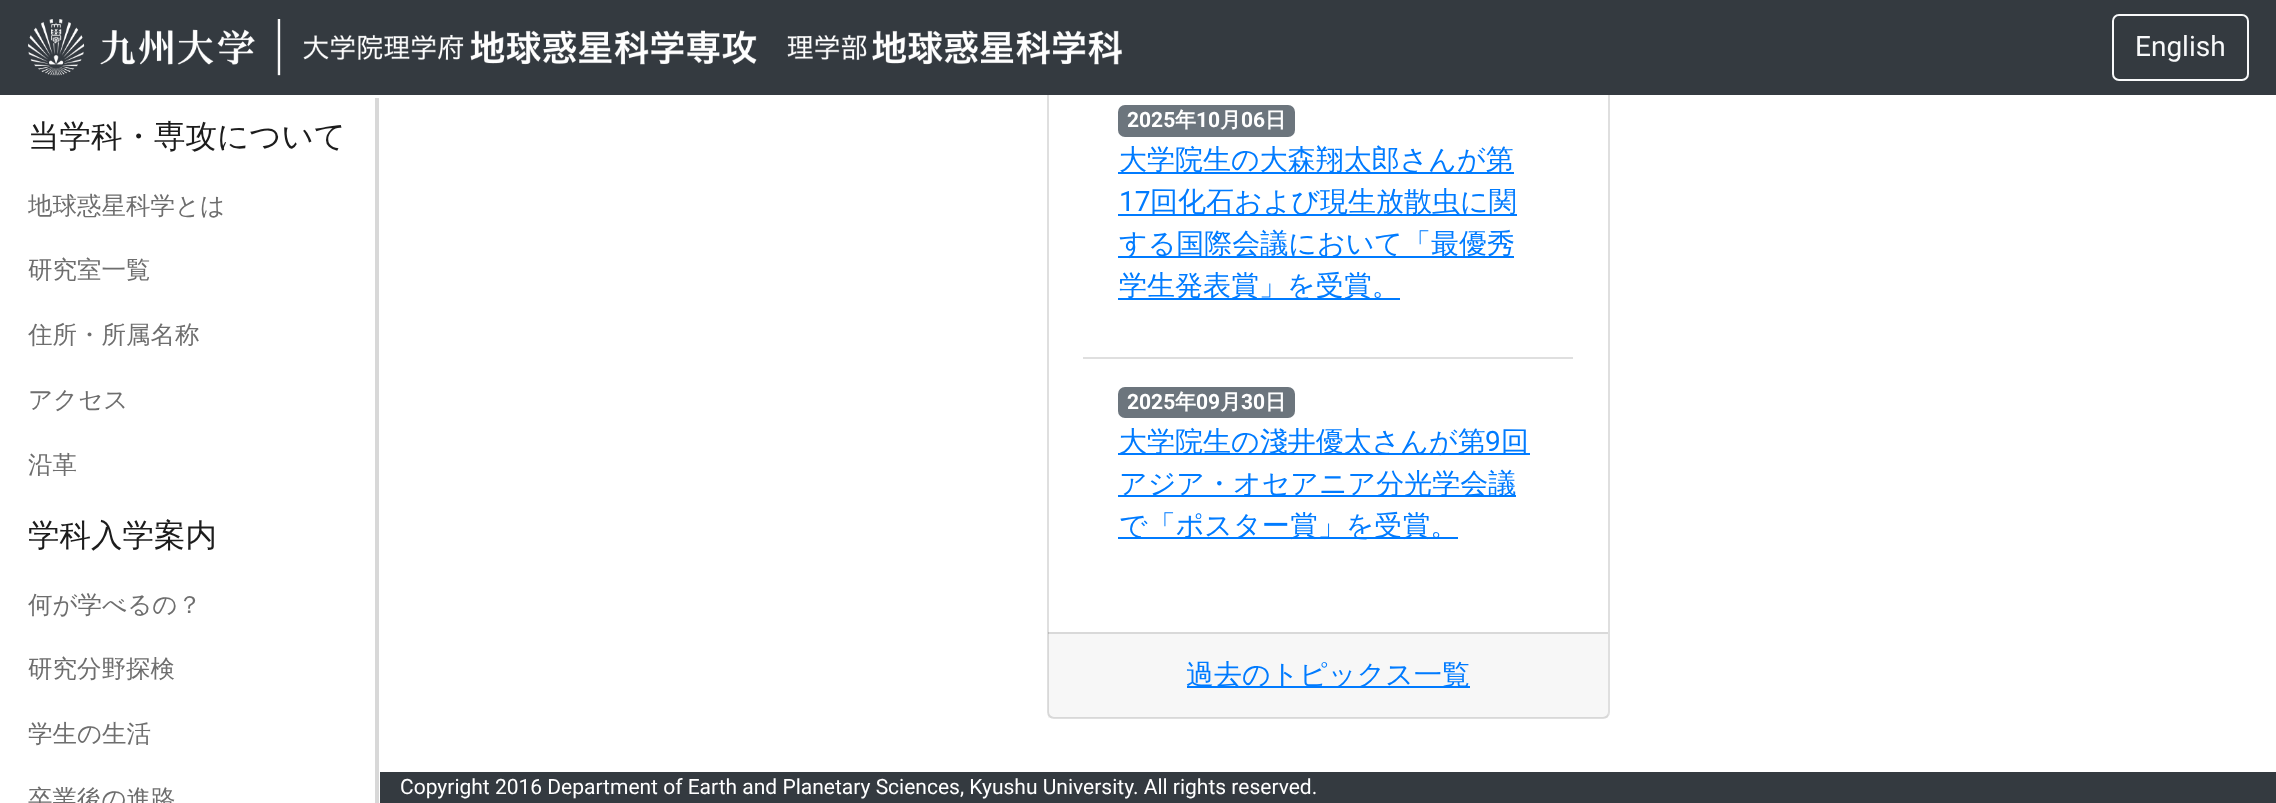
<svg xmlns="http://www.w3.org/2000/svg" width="2276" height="803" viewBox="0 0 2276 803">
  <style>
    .t1 { font: 28px Roboto; fill: #f8f9fa; }
    .t2 { font: 500 31.5px WenQuanYi Zen Hei; fill: #1c1c1c; }
    .t3 { font: 500 24.5px WenQuanYi Zen Hei; fill: #6e6e6e; }
    .t4 { font: bold 21px Roboto; fill: #fff; }
    .t5 { font: bold 21px WenQuanYi Zen Hei; fill: #fff; }
    .t6 { font: 500 28px WenQuanYi Zen Hei; fill: #007bff; }
    .t7 { font: 28px Roboto; fill: #007bff; }
    .t8 { font: 21px Roboto; fill: #fff; }
  </style>
  <rect width="100%" height="100%" fill="#fff"/>
  <rect x="1048" y="-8" width="561" height="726" rx="6" fill="none" stroke="#dfdfdf" stroke-width="2"/>
  <rect x="0" y="0" width="2276" height="95" fill="#343a40"/>
  <image x="28" y="19" width="1094" height="57" href="images/1.png"/>
  <rect x="2113" y="15" width="135" height="65" rx="6" fill="none" stroke="#f8f9fa" stroke-width="2"/>
  <text x="2135" y="56" class="t1">English</text>
  <rect x="375" y="98" width="4" height="705" fill="#d8d8d8"/>
  <text x="28" y="147" class="t2">当学科・専攻について</text>
  <text x="28" y="214" class="t3">地球惑星科学とは</text>
  <text x="28" y="278" class="t3">研究室一覧</text>
  <text x="28" y="343" class="t3">住所・所属名称</text>
  <text x="28" y="408" class="t3">アクセス</text>
  <text x="28" y="473" class="t3">沿革</text>
  <text x="28" y="546" class="t2">学科入学案内</text>
  <text x="28" y="613" class="t3">何が学べるの？</text>
  <text x="28" y="677" class="t3">研究分野探検</text>
  <text x="28" y="742" class="t3">学生の生活</text>
  <text x="28" y="807" class="t3">卒業後の進路</text>
  <rect x="1118" y="105" width="177" height="32" rx="7" fill="#6c757d"/>
  <text x="1127" y="127" class="t4">2025</text>
  <text x="1175" y="127" class="t5">年</text>
  <text x="1196" y="127" class="t4">10</text>
  <text x="1220" y="127" class="t5">月</text>
  <text x="1241" y="127" class="t4">06</text>
  <text x="1265" y="127" class="t5">日</text>
  <rect x="1118" y="172" width="396" height="2" fill="#007bff"/>
  <text x="1119" y="169" class="t6">大学院生の大森翔太郎さんが第</text>
  <text x="1119" y="211" class="t7">17</text>
  <rect x="1118" y="214" width="399" height="2" fill="#007bff"/>
  <text x="1150" y="211" class="t6">回化石および現生放散虫に関</text>
  <rect x="1118" y="256" width="396" height="2" fill="#007bff"/>
  <text x="1119" y="253" class="t6">する国際会議において「最優秀</text>
  <rect x="1118" y="298" width="282" height="2" fill="#007bff"/>
  <text x="1119" y="295" class="t6">学生発表賞」を受賞。</text>
  <rect x="1083" y="357" width="490" height="2" fill="#dfdfdf"/>
  <rect x="1118" y="387" width="177" height="31" rx="7" fill="#6c757d"/>
  <text x="1127" y="409" class="t4">2025</text>
  <text x="1175" y="409" class="t5">年</text>
  <text x="1196" y="409" class="t4">09</text>
  <text x="1220" y="409" class="t5">月</text>
  <text x="1241" y="409" class="t4">30</text>
  <text x="1265" y="409" class="t5">日</text>
  <rect x="1118" y="453" width="412" height="2" fill="#007bff"/>
  <text x="1119" y="451" class="t6">大学院生の淺井優太さんが第</text>
  <text x="1485" y="451" class="t7">9</text>
  <text x="1501" y="451" class="t6">回</text>
  <rect x="1118" y="495" width="398" height="2" fill="#007bff"/>
  <text x="1119" y="493" class="t6">アジア・オセアニア分光学会議</text>
  <rect x="1118" y="537" width="340" height="2" fill="#007bff"/>
  <text x="1119" y="535" class="t6">で「ポスター賞」を受賞。</text>
  <rect x="1048" y="632" width="560" height="86" fill="#00000008"/>
  <rect x="1048" y="632" width="560" height="2" fill="#0000001f"/>
  <rect x="1187" y="686" width="283" height="2" fill="#007bff"/>
  <text x="1186" y="684" class="t6">過去のトピックス一覧</text>
  <rect x="380" y="772" width="1896" height="31" fill="#343a40"/>
  <text x="400" y="794" class="t8">Copyright 2016 Department of Earth and Planetary Sciences, Kyushu University. All rights reserved.</text>
</svg>
